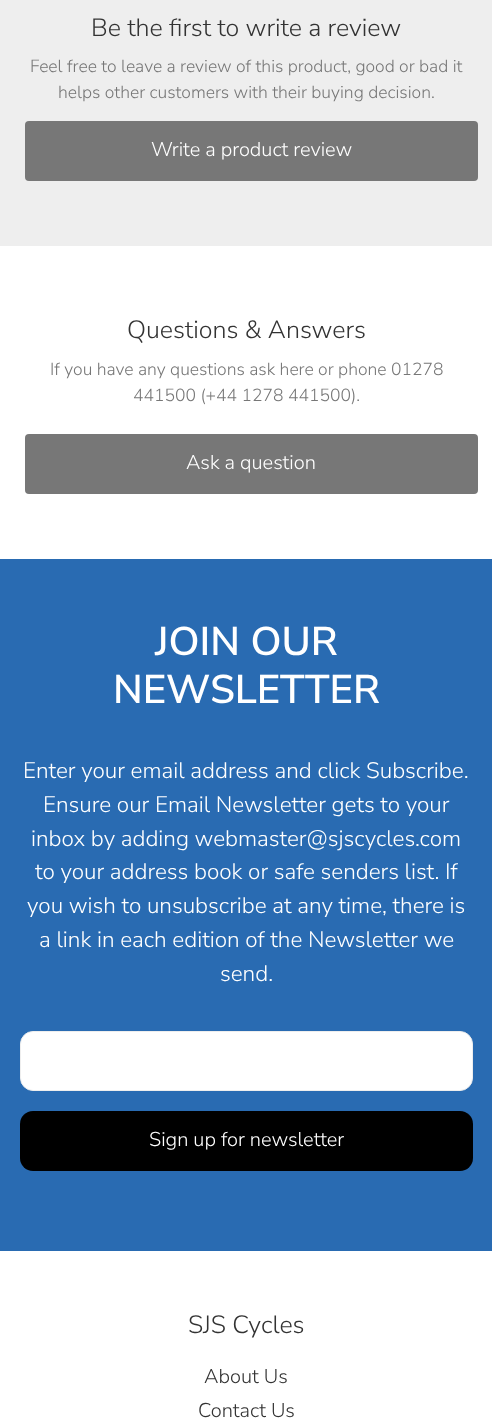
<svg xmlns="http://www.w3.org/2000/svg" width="492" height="1428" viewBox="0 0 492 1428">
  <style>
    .t1 { font: 300 25px Nunito Sans; fill: #333; }
    .t2 { font: 300 17.5px Nunito Sans; fill: #777; }
    .t3 { font: 300 20px Nunito Sans; fill: #fff; }
    .t4 { font: 600 40px Nunito Sans; fill: #fff; }
    .t5 { font: 300 22.5px Nunito Sans; fill: #fff; }
    .t6 { font: 300 20px Nunito Sans; fill: #333; }
  </style>
  <rect width="100%" height="100%" fill="#fff"/>
  <rect x="0" y="0" width="492" height="246" fill="#eee"/>
  <text x="91" y="36" class="t1">Be the first to write a review</text>
  <text x="30" y="72" class="t2">Feel free to leave a review of this product, good or bad it</text>
  <text x="58" y="98" class="t2">helps other customers with their buying decision.</text>
  <rect x="25" y="121" width="453" height="60" rx="4" fill="#777"/>
  <text x="151" y="156" class="t3">Write a product review</text>
  <text x="127" y="338" class="t1">Questions &amp; Answers</text>
  <text x="50" y="375" class="t2">If you have any questions ask here or phone 01278</text>
  <text x="133" y="401" class="t2">441500 (+44 1278 441500).</text>
  <rect x="25" y="434" width="453" height="60" rx="4" fill="#777"/>
  <text x="186" y="469" class="t3">Ask a question</text>
  <rect x="0" y="559" width="492" height="692" fill="#296bb2"/>
  <text x="155" y="655" class="t4">JOIN OUR</text>
  <text x="113" y="703" class="t4">NEWSLETTER</text>
  <text x="23" y="778" class="t5">Enter your email address and click Subscribe.</text>
  <text x="43" y="812" class="t5">Ensure our Email Newsletter gets to your</text>
  <text x="31" y="846" class="t5">inbox by adding webmaster@sjscycles.com</text>
  <text x="35" y="879" class="t5">to your address book or safe senders list. If</text>
  <text x="27" y="913" class="t5">you wish to unsubscribe at any time, there is</text>
  <text x="39" y="947" class="t5">a link in each edition of the Newsletter we</text>
  <text x="220" y="981" class="t5">send.</text>
  <rect x="20.5" y="1031.5" width="452" height="59" rx="12.5" fill="#fff" stroke="#eee"/>
  <rect x="20" y="1111" width="453" height="60" rx="13" fill="#000"/>
  <text x="149" y="1146" class="t3">Sign up for newsletter</text>
  <text x="188" y="1333" class="t1">SJS Cycles</text>
  <text x="204" y="1383" class="t6">About Us</text>
  <text x="198" y="1417" class="t6">Contact Us</text>
</svg>
